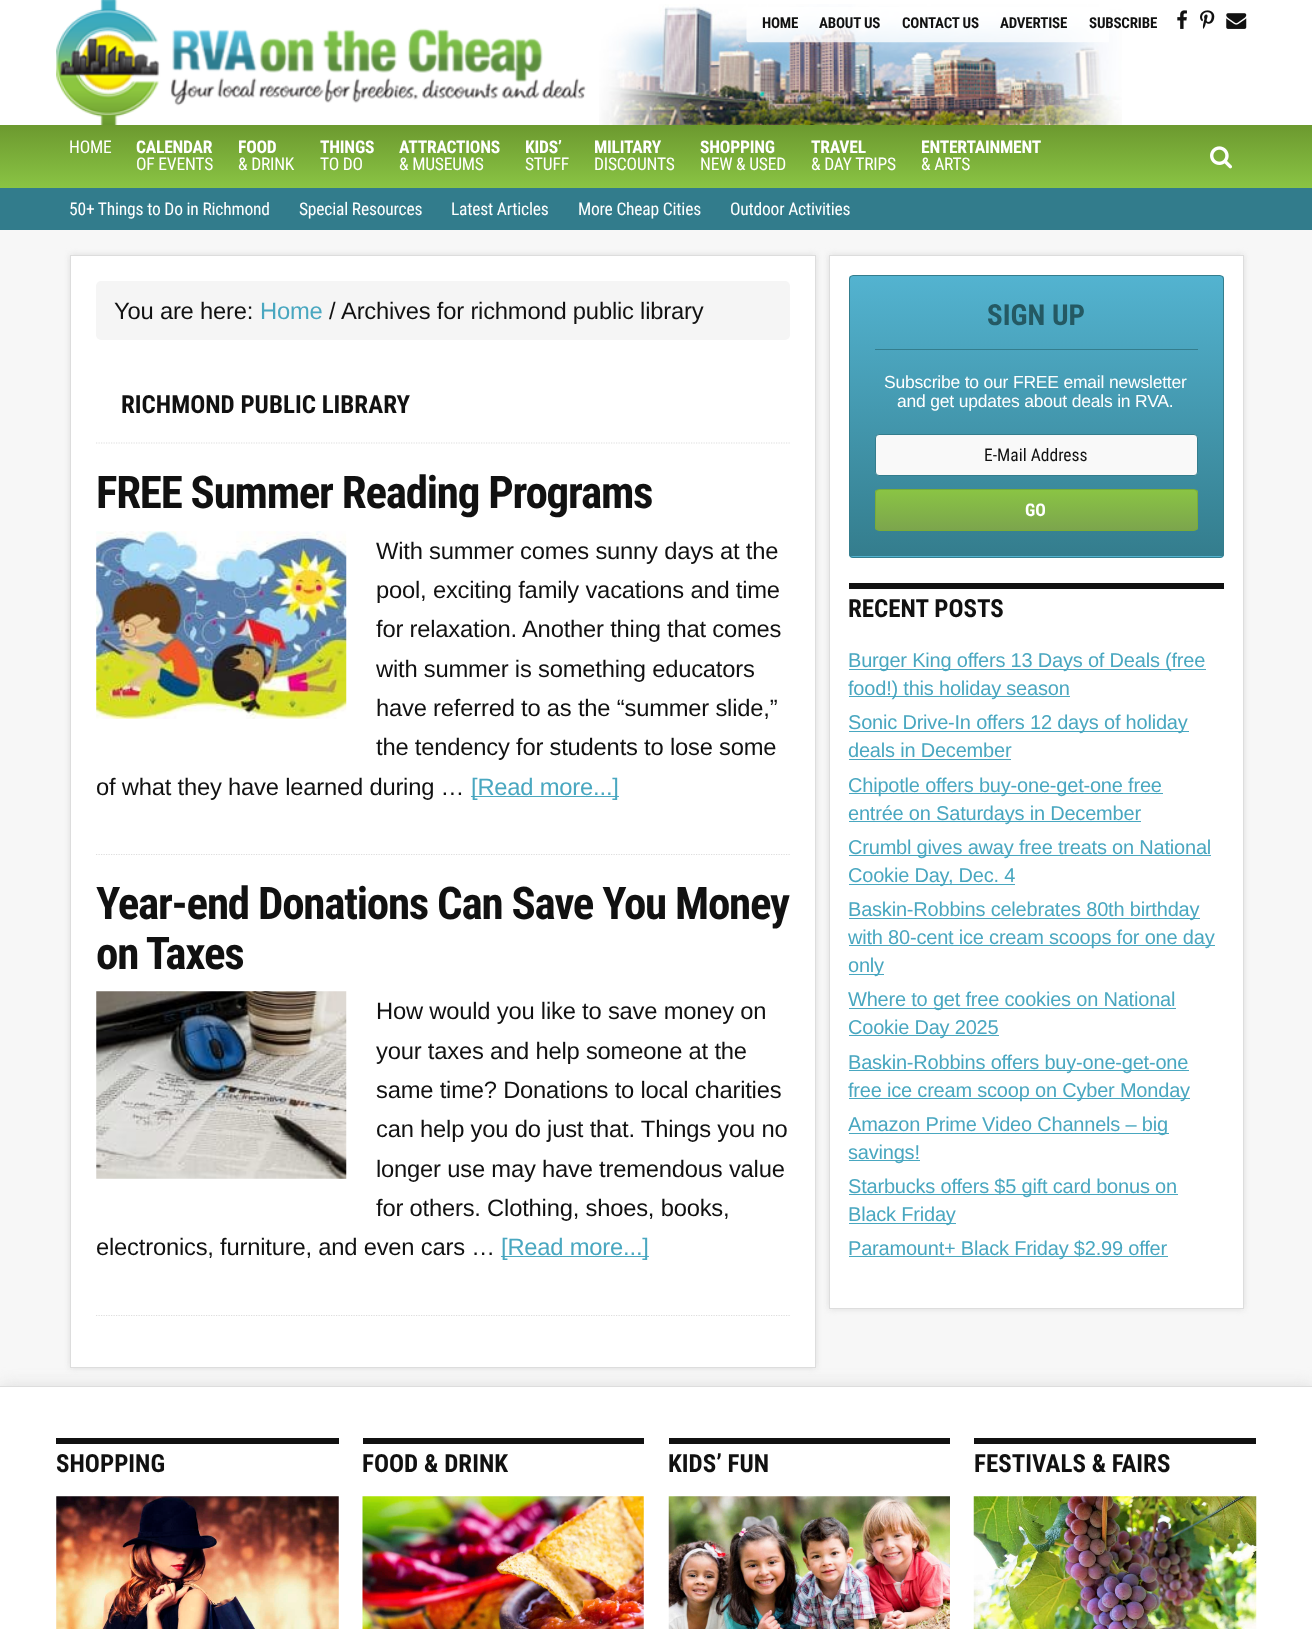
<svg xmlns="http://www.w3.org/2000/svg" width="1312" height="1629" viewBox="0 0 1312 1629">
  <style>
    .t1 { font: bold 15px Roboto Condensed; letter-spacing: -0.2px; fill: #111; }
    .t2 { font: 17.5px Roboto Condensed; letter-spacing: -0.2px; fill: #fff; }
    .t3 { font: bold 17.5px Roboto Condensed; letter-spacing: -0.2px; fill: #fff; }
    .t4 { font: 23.75px Arimo; letter-spacing: -0.2px; fill: #111; }
    .t5 { font: 23.75px Arimo; letter-spacing: -0.2px; fill: #49a7c0; }
    .t6 { font: bold 25px Roboto Condensed; fill: #111; }
    .t7 { font: bold 45px Roboto Condensed; letter-spacing: -1.25px; fill: #111; }
    .t8 { font: bold 29px Roboto Condensed; fill: #245963; }
    .t9 { font: 17.5px Arimo; letter-spacing: -0.2px; fill: #fff; }
    .t10 { font: 17.5px Roboto Condensed; fill: #111; }
    .t11 { font: bold 17.5px Roboto Condensed; fill: #fff; }
    .t12 { font: 20px Arimo; letter-spacing: -0.2px; fill: #49a7c0; }
  </style>
  <defs>
    <linearGradient id="g1" gradientUnits="userSpaceOnUse" x1="656" y1="125" x2="656" y2="188"><stop offset="0" stop-color="#6c992f"/><stop offset="1" stop-color="#8ac444"/></linearGradient>
    <clipPath id="clip1"><rect x="849" y="275" width="375" height="283" rx="4"/></clipPath>
    <linearGradient id="g2" gradientUnits="userSpaceOnUse" x1="1036" y1="276" x2="1036" y2="556"><stop offset="0" stop-color="#53b3d0"/><stop offset="1" stop-color="#347d8d"/></linearGradient>
    <linearGradient id="g3" gradientUnits="userSpaceOnUse" x1="1036" y1="556" x2="1036" y2="836"><stop offset="0" stop-color="#53b3d0"/><stop offset="1" stop-color="#347d8d"/></linearGradient>
    <clipPath id="clip2"><rect x="875" y="489" width="323" height="42" rx="4"/></clipPath>
    <linearGradient id="g4" gradientUnits="userSpaceOnUse" x1="1036" y1="490" x2="1036" y2="530"><stop offset="0" stop-color="#8ac444"/><stop offset="1" stop-color="#7ca54d"/></linearGradient>
  </defs>
  <rect width="100%" height="100%" fill="#f7f7f7"/>
  <rect x="0" y="0" width="1312" height="125" fill="#fff"/>
  <image x="599" y="4" width="523" height="121" href="images/1.png"/>
  <image x="56" y="0" width="530" height="125" href="images/2.png"/>
  <image x="746" y="7" width="363" height="36" href="images/3.png"/>
  <text x="762" y="28" class="t1">HOME</text>
  <text x="819" y="28" class="t1">ABOUT US</text>
  <text x="902" y="28" class="t1">CONTACT US</text>
  <text x="1000" y="28" class="t1">ADVERTISE</text>
  <text x="1089" y="28" class="t1">SUBSCRIBE</text>
  <image x="1177" y="10" width="10" height="19" href="images/4.png"/>
  <image x="1200" y="10" width="15" height="19" href="images/5.png"/>
  <image x="1226" y="13" width="21" height="16" href="images/6.png"/>
  <rect x="0" y="125" width="1312" height="63" fill="url(#g1)"/>
  <text x="69" y="153" class="t2">HOME</text>
  <text x="136" y="153" class="t3">CALENDAR</text>
  <text x="136" y="170" class="t2">OF EVENTS</text>
  <text x="238" y="153" class="t3">FOOD</text>
  <text x="238" y="170" class="t2">&amp; DRINK</text>
  <text x="320" y="153" class="t3">THINGS</text>
  <text x="320" y="170" class="t2">TO DO</text>
  <text x="399" y="153" class="t3">ATTRACTIONS</text>
  <text x="399" y="170" class="t2">&amp; MUSEUMS</text>
  <text x="525" y="153" class="t3">KIDS’</text>
  <text x="525" y="170" class="t2">STUFF</text>
  <text x="594" y="153" class="t3">MILITARY</text>
  <text x="594" y="170" class="t2">DISCOUNTS</text>
  <text x="700" y="153" class="t3">SHOPPING</text>
  <text x="700" y="170" class="t2">NEW &amp; USED</text>
  <text x="811" y="153" class="t3">TRAVEL</text>
  <text x="811" y="170" class="t2">&amp; DAY TRIPS</text>
  <text x="921" y="153" class="t3">ENTERTAINMENT</text>
  <text x="921" y="170" class="t2">&amp; ARTS</text>
  <image x="1210" y="146" width="22" height="23" href="images/7.png"/>
  <rect x="0" y="188" width="1312" height="42" fill="#327c8c"/>
  <text x="69" y="215" class="t2">50+ Things to Do in Richmond</text>
  <text x="299" y="215" class="t2">Special Resources</text>
  <text x="451" y="215" class="t2">Latest Articles</text>
  <text x="578" y="215" class="t2">More Cheap Cities</text>
  <text x="730" y="215" class="t2">Outdoor Activities</text>
  <rect x="70" y="255" width="746" height="1113" fill="#ddd" filter="blur(3px)"/>
  <rect x="70.5" y="255.5" width="745" height="1112" fill="#fff" stroke="#ddd"/>
  <rect x="96" y="281" width="694" height="59" rx="5" fill="#f5f5f5"/>
  <text x="114" y="319" class="t4">You are here:</text>
  <text x="260" y="319" class="t5">Home</text>
  <text x="329" y="319" class="t4">/</text>
  <text x="341" y="319" class="t4">Archives for richmond public library</text>
  <path d="M96 443H790" fill="none" stroke="#ddd" stroke-width="1.2" stroke-dasharray="1.25 1.25"/>
  <text x="121" y="413" class="t6">RICHMOND PUBLIC LIBRARY</text>
  <path d="M96 854.5H790" fill="none" stroke="#ddd" stroke-width="1.2" stroke-dasharray="1.25 1.25"/>
  <text x="96" y="508" class="t7">FREE Summer Reading Programs</text>
  <image x="96" y="531" width="251" height="188" href="images/8.png"/>
  <text x="376" y="559" class="t4">With summer comes sunny days at the</text>
  <text x="376" y="598" class="t4">pool, exciting family vacations and time</text>
  <text x="376" y="637" class="t4">for relaxation. Another thing that comes</text>
  <text x="376" y="677" class="t4">with summer is something educators</text>
  <text x="376" y="716" class="t4">have referred to as the “summer slide,”</text>
  <text x="376" y="755" class="t4">the tendency for students to lose some</text>
  <text x="96" y="795" class="t4">of what they have learned during …</text>
  <rect x="471" y="796" width="148" height="1" fill="#49a7c0"/>
  <text x="471" y="795" class="t5">[Read more...]</text>
  <path d="M96 1315.5H790" fill="none" stroke="#ddd" stroke-width="1.2" stroke-dasharray="1.25 1.25"/>
  <text x="96" y="919" class="t7">Year-end Donations Can Save You Money</text>
  <text x="96" y="969" class="t7">on Taxes</text>
  <image x="96" y="991" width="251" height="188" href="images/9.png"/>
  <text x="376" y="1019" class="t4">How would you like to save money on</text>
  <text x="376" y="1059" class="t4">your taxes and help someone at the</text>
  <text x="376" y="1098" class="t4">same time? Donations to local charities</text>
  <text x="376" y="1137" class="t4">can help you do just that. Things you no</text>
  <text x="376" y="1177" class="t4">longer use may have tremendous value</text>
  <text x="376" y="1216" class="t4">for others. Clothing, shoes, books,</text>
  <text x="96" y="1255" class="t4">electronics, furniture, and even cars …</text>
  <rect x="501" y="1256" width="148" height="1" fill="#49a7c0"/>
  <text x="501" y="1255" class="t5">[Read more...]</text>
  <rect x="829" y="255" width="415" height="1054" fill="#ddd" filter="blur(3px)"/>
  <rect x="829.5" y="255.5" width="414" height="1053" fill="#fff" stroke="#ddd"/>
  <g clip-path="url(#clip1)">
    <rect x="849" y="276" width="375" height="280" fill="url(#g2)"/>
    <rect x="849" y="556" width="375" height="2" fill="url(#g3)"/>
  </g>
  <rect x="849.5" y="275.5" width="374" height="282" rx="3.5" fill="none" stroke="#347d8d"/>
  <rect x="875" y="349" width="323" height="1" fill="#347d8d"/>
  <text x="987" y="325" class="t8">SIGN UP</text>
  <text x="884" y="388" class="t9">Subscribe to our FREE email newsletter</text>
  <text x="897" y="407" class="t9">and get updates about deals in RVA.</text>
  <rect x="875.5" y="434.5" width="322" height="41" rx="3.5" fill="#f9f9f9" stroke="#347d8d"/>
  <text x="984" y="461" class="t10">E-Mail Address</text>
  <g clip-path="url(#clip2)">
    <rect x="875" y="490" width="323" height="40" fill="url(#g4)"/>
  </g>
  <rect x="875.5" y="489.5" width="322" height="41" rx="3.5" fill="none" stroke="#79ac38"/>
  <text x="1025" y="516" class="t11">GO</text>
  <rect x="849" y="583" width="375" height="6" fill="#111"/>
  <text x="848" y="617" class="t6">RECENT POSTS</text>
  <rect x="849" y="669" width="357" height="1" fill="#49a7c0"/>
  <text x="848" y="667" class="t12">Burger King offers 13 Days of Deals (free</text>
  <rect x="849" y="696" width="221" height="1" fill="#49a7c0"/>
  <text x="848" y="695" class="t12">food!) this holiday season</text>
  <rect x="849" y="731" width="340" height="1" fill="#49a7c0"/>
  <text x="848" y="729" class="t12">Sonic Drive-In offers 12 days of holiday</text>
  <text x="848" y="757" class="t12">deals in December</text>
  <rect x="849" y="759" width="162" height="1" fill="#49a7c0"/>
  <rect x="849" y="793" width="314" height="1" fill="#49a7c0"/>
  <text x="848" y="792" class="t12">Chipotle offers buy-one-get-one free</text>
  <rect x="849" y="821" width="292" height="1" fill="#49a7c0"/>
  <text x="848" y="820" class="t12">entrée on Saturdays in December</text>
  <rect x="849" y="855" width="362" height="1" fill="#49a7c0"/>
  <text x="848" y="854" class="t12">Crumbl gives away free treats on National</text>
  <rect x="849" y="884" width="166" height="1" fill="#49a7c0"/>
  <text x="848" y="882" class="t12">Cookie Day, Dec. 4</text>
  <rect x="849" y="918" width="351" height="1" fill="#49a7c0"/>
  <text x="848" y="916" class="t12">Baskin-Robbins celebrates 80th birthday</text>
  <rect x="849" y="945" width="366" height="1" fill="#49a7c0"/>
  <text x="848" y="944" class="t12">with 80-cent ice cream scoops for one day</text>
  <rect x="849" y="974" width="35" height="1" fill="#49a7c0"/>
  <text x="848" y="972" class="t12">only</text>
  <rect x="849" y="1008" width="327" height="1" fill="#49a7c0"/>
  <text x="848" y="1006" class="t12">Where to get free cookies on National</text>
  <rect x="849" y="1035" width="150" height="1" fill="#49a7c0"/>
  <text x="848" y="1034" class="t12">Cookie Day 2025</text>
  <rect x="849" y="1070" width="340" height="1" fill="#49a7c0"/>
  <text x="848" y="1069" class="t12">Baskin-Robbins offers buy-one-get-one</text>
  <rect x="849" y="1098" width="341" height="1" fill="#49a7c0"/>
  <text x="848" y="1097" class="t12">free ice cream scoop on Cyber Monday</text>
  <rect x="849" y="1133" width="320" height="1" fill="#49a7c0"/>
  <text x="848" y="1131" class="t12">Amazon Prime Video Channels – big</text>
  <rect x="849" y="1160" width="71" height="1" fill="#49a7c0"/>
  <text x="848" y="1159" class="t12">savings!</text>
  <rect x="849" y="1194" width="329" height="1" fill="#49a7c0"/>
  <text x="848" y="1193" class="t12">Starbucks offers $5 gift card bonus on</text>
  <rect x="849" y="1223" width="107" height="1" fill="#49a7c0"/>
  <text x="848" y="1221" class="t12">Black Friday</text>
  <rect x="849" y="1256" width="319" height="1" fill="#49a7c0"/>
  <text x="848" y="1255" class="t12">Paramount+ Black Friday $2.99 offer</text>
  <rect x="0" y="1386" width="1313" height="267" fill="#ddd" filter="blur(8px)"/>
  <rect x="0" y="1387" width="1312" height="242" fill="#fff"/>
  <rect x="0" y="1386" width="1312" height="1" fill="#ddd"/>
  <rect x="56" y="1438" width="283" height="6" fill="#111"/>
  <text x="56" y="1472" class="t6">SHOPPING</text>
  <image x="56" y="1496" width="283" height="133" href="images/10.png"/>
  <rect x="363" y="1438" width="281" height="6" fill="#111"/>
  <text x="362" y="1472" class="t6">FOOD &amp; DRINK</text>
  <image x="362" y="1496" width="282" height="133" href="images/11.png"/>
  <rect x="669" y="1438" width="281" height="6" fill="#111"/>
  <text x="668" y="1472" class="t6">KIDS’ FUN</text>
  <image x="668" y="1496" width="282" height="133" href="images/12.png"/>
  <rect x="974" y="1438" width="282" height="6" fill="#111"/>
  <text x="974" y="1472" class="t6">FESTIVALS &amp; FAIRS</text>
  <image x="973" y="1496" width="284" height="133" href="images/13.png"/>
</svg>
